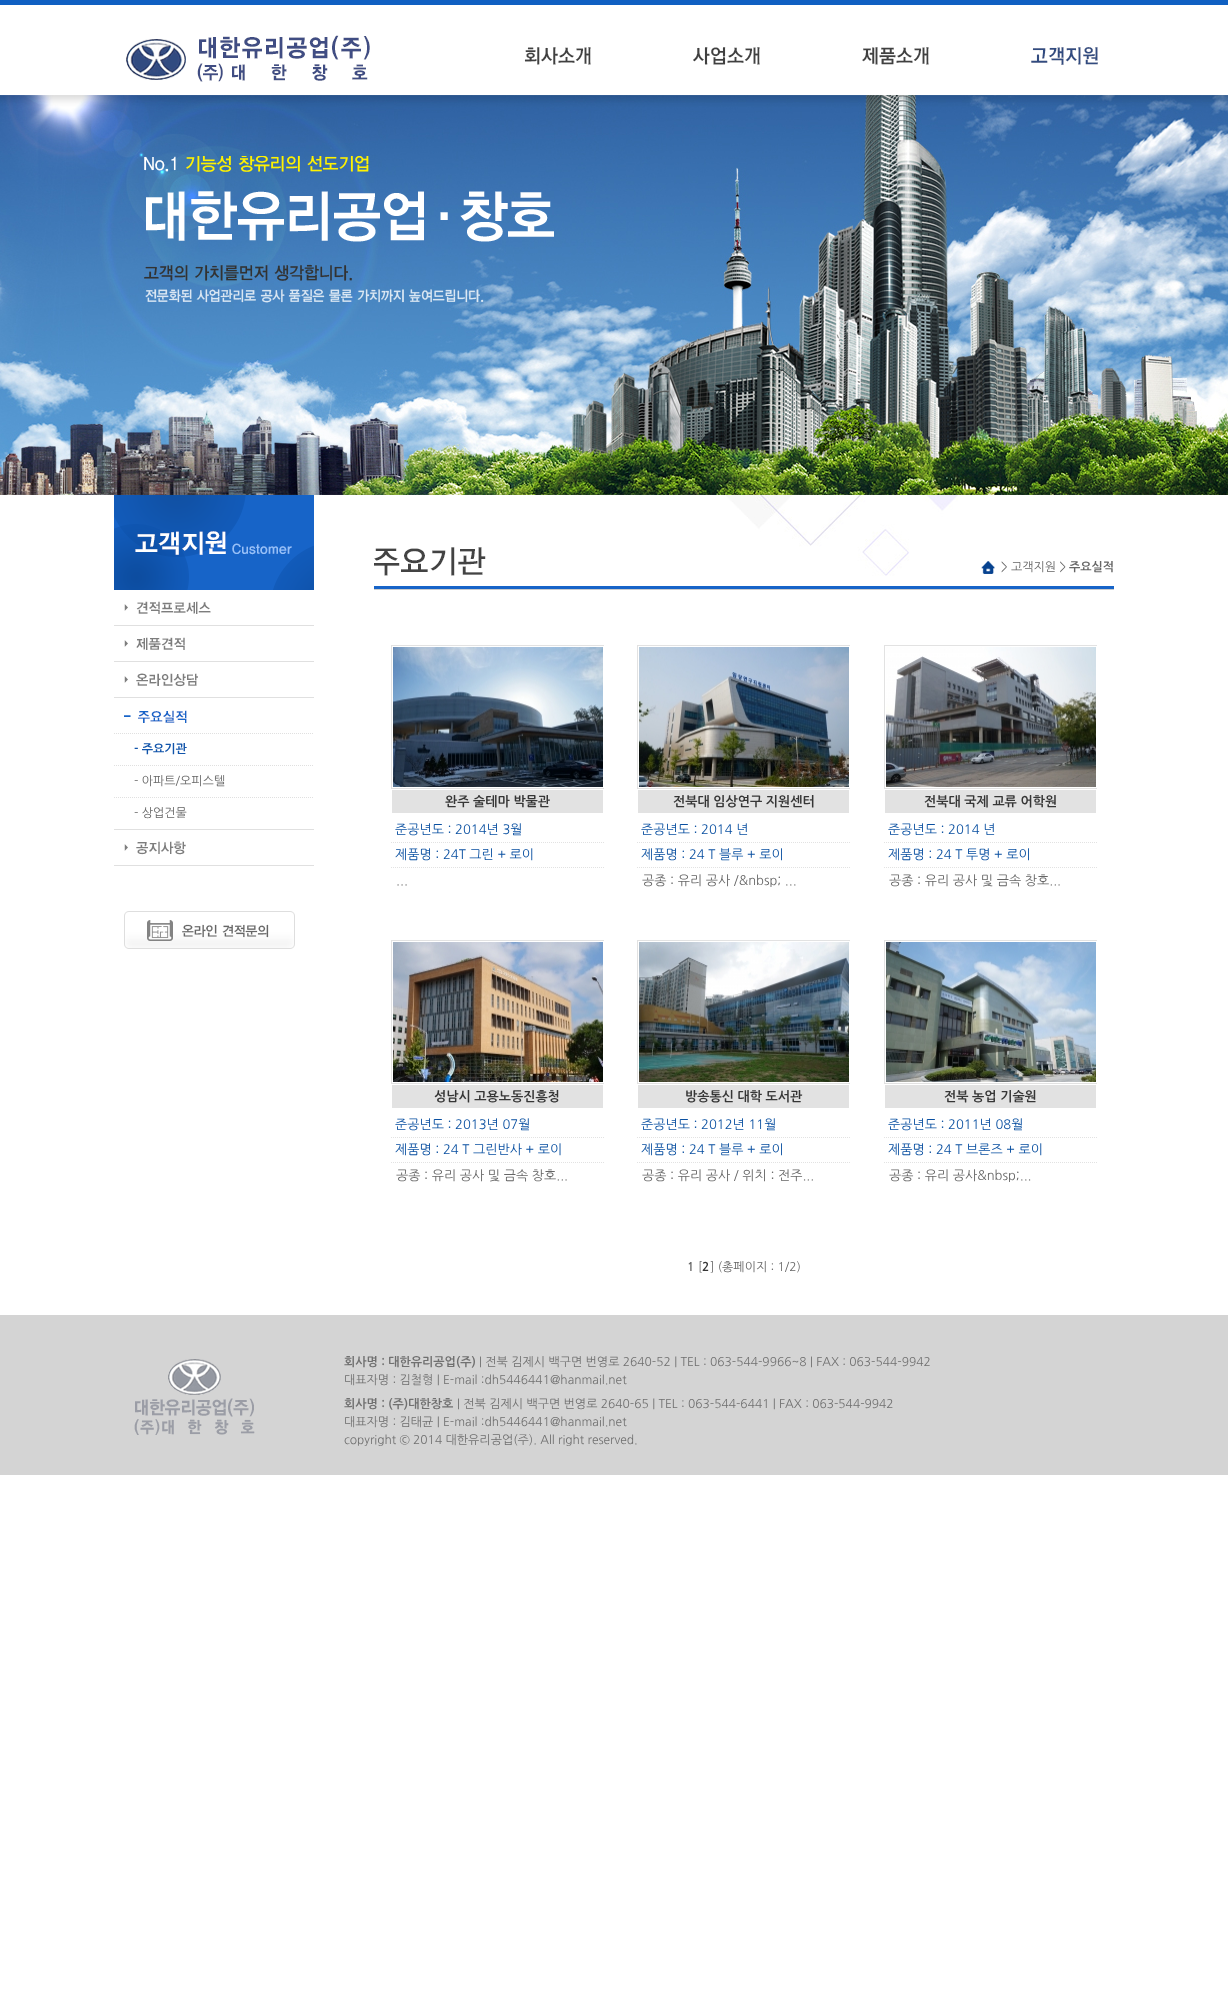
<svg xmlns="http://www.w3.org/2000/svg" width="1228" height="1998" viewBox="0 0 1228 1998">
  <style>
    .t1 { font: bold 12px NanumGothic; fill: #1154aa; }
    .t2 { font: 12px NanumGothic; fill: #666; }
    .t3 { font: bold 12px NanumGothic; fill: #666; }
    .t4 { font: bold 13px NanumGothic; fill: #363636; }
    .t5 { font: 13px NanumGothic; fill: #0a50a1; }
    .t6 { font: 13px NanumGothic; fill: #666; }
    .t7 { font: bold 12px NanumGothic; fill: #363636; }
    .t8 { font: bold 12px NanumGothic; fill: #707070; }
    .t9 { font: 12px NanumGothic; fill: #707070; }
  </style>
  <rect width="100%" height="100%" fill="#fff"/>
  <rect x="0" y="0" width="1228" height="5" fill="#1060c2"/>
  <image x="126" y="35" width="244" height="47" href="images/1.png"/>
  <image x="524" y="47" width="67" height="18" href="images/2.png"/>
  <image x="693" y="47" width="67" height="18" href="images/3.png"/>
  <image x="862" y="47" width="67" height="18" href="images/4.png"/>
  <image x="1031" y="47" width="67" height="18" href="images/5.png"/>
  <image x="0" y="95" width="1228" height="400" href="images/6.png"/>
  <image x="144" y="156" width="410" height="147" href="images/7.png"/>
  <image x="114" y="495" width="200" height="95" href="images/8.png"/>
  <rect x="114" y="625" width="200" height="1" fill="#e0e0e0"/>
  <image x="124" y="601" width="87" height="13" href="images/9.png"/>
  <rect x="114" y="661" width="200" height="1" fill="#e0e0e0"/>
  <image x="124" y="637" width="61" height="13" href="images/10.png"/>
  <rect x="114" y="697" width="200" height="1" fill="#e0e0e0"/>
  <image x="124" y="673" width="74" height="14" href="images/11.png"/>
  <rect x="114" y="829" width="200" height="1" fill="#e0e0e0"/>
  <image x="124" y="710" width="63" height="13" href="images/12.png"/>
  <path d="M114 733.5H314" fill="none" stroke="#e0e0e0" stroke-dasharray="1 1"/>
  <text x="134" y="753" class="t1">- 주요기관</text>
  <path d="M114 765.5H314" fill="none" stroke="#e0e0e0" stroke-dasharray="1 1"/>
  <text x="134" y="785" class="t2">- 아파트/오피스텔</text>
  <path d="M114 797.5H314" fill="none" stroke="#e0e0e0" stroke-dasharray="1 1"/>
  <text x="134" y="817" class="t2">- 상업건물</text>
  <rect x="114" y="865" width="200" height="1" fill="#e0e0e0"/>
  <image x="124" y="841" width="62" height="14" href="images/13.png"/>
  <image x="124" y="911" width="171" height="38" href="images/14.png"/>
  <image x="726" y="495" width="232" height="81" href="images/15.png"/>
  <rect x="374" y="589" width="740" height="1" fill="#ccc"/>
  <rect x="374" y="586" width="740" height="3" fill="#1764c8"/>
  <image x="374" y="547" width="112" height="29" href="images/16.png"/>
  <image x="981" y="561" width="14" height="13" href="images/17.png"/>
  <text x="1001" y="571" class="t2">&gt; 고객지원 &gt;</text>
  <text x="1069" y="571" class="t3">주요실적</text>
  <rect x="391" y="645" width="213" height="1" fill="#e2e2e2"/>
  <rect x="391" y="788" width="213" height="1" fill="#e2e2e2"/>
  <rect x="391" y="645" width="1" height="144" fill="#e2e2e2"/>
  <image x="393" y="647" width="210" height="140" href="images/18.png"/>
  <rect x="392" y="790" width="211" height="23" fill="#e2e2e2"/>
  <text x="445" y="806" class="t4">완주 술테마 박물관</text>
  <path d="M391 842.5H604" fill="none" stroke="#e2e2e2" stroke-dasharray="1 1"/>
  <text x="395" y="834" class="t5">준공년도 : 2014년 3월</text>
  <path d="M391 867.5H604" fill="none" stroke="#e2e2e2" stroke-dasharray="1 1"/>
  <text x="395" y="859" class="t5">제품명 : 24T 그린 + 로이</text>
  <text x="396" y="885" class="t6">...</text>
  <rect x="637" y="645" width="213" height="1" fill="#e2e2e2"/>
  <rect x="637" y="788" width="213" height="1" fill="#e2e2e2"/>
  <rect x="637" y="645" width="1" height="144" fill="#e2e2e2"/>
  <image x="639" y="647" width="210" height="140" href="images/19.png"/>
  <rect x="638" y="790" width="211" height="23" fill="#e2e2e2"/>
  <text x="673" y="806" class="t4">전북대 임상연구 지원센터</text>
  <path d="M637 842.5H850" fill="none" stroke="#e2e2e2" stroke-dasharray="1 1"/>
  <text x="641" y="834" class="t5">준공년도 : 2014 년</text>
  <path d="M637 867.5H850" fill="none" stroke="#e2e2e2" stroke-dasharray="1 1"/>
  <text x="641" y="859" class="t5">제품명 : 24 T 블루 + 로이</text>
  <text x="642" y="885" class="t6">공종 : 유리 공사 /&amp;nbsp; ...</text>
  <rect x="884" y="645" width="213" height="1" fill="#e2e2e2"/>
  <rect x="884" y="788" width="213" height="1" fill="#e2e2e2"/>
  <rect x="884" y="645" width="1" height="144" fill="#e2e2e2"/>
  <image x="886" y="647" width="210" height="140" href="images/20.png"/>
  <rect x="885" y="790" width="211" height="23" fill="#e2e2e2"/>
  <text x="924" y="806" class="t4">전북대 국제 교류 어학원</text>
  <path d="M884 842.5H1097" fill="none" stroke="#e2e2e2" stroke-dasharray="1 1"/>
  <text x="888" y="834" class="t5">준공년도 : 2014 년</text>
  <path d="M884 867.5H1097" fill="none" stroke="#e2e2e2" stroke-dasharray="1 1"/>
  <text x="888" y="859" class="t5">제품명 : 24 T 투명 + 로이</text>
  <text x="889" y="885" class="t6">공종 : 유리 공사 및 금속 창호...</text>
  <rect x="391" y="940" width="213" height="1" fill="#e2e2e2"/>
  <rect x="391" y="1083" width="213" height="1" fill="#e2e2e2"/>
  <rect x="391" y="940" width="1" height="144" fill="#e2e2e2"/>
  <image x="393" y="942" width="210" height="140" href="images/21.png"/>
  <rect x="392" y="1085" width="211" height="23" fill="#e2e2e2"/>
  <text x="434" y="1101" class="t4">성남시 고용노동진흥청</text>
  <path d="M391 1137.5H604" fill="none" stroke="#e2e2e2" stroke-dasharray="1 1"/>
  <text x="395" y="1129" class="t5">준공년도 : 2013년 07월</text>
  <path d="M391 1162.5H604" fill="none" stroke="#e2e2e2" stroke-dasharray="1 1"/>
  <text x="395" y="1154" class="t5">제품명 : 24 T 그린반사 + 로이</text>
  <text x="396" y="1180" class="t6">공종 : 유리 공사 및 금속 창호...</text>
  <rect x="637" y="940" width="213" height="1" fill="#e2e2e2"/>
  <rect x="637" y="1083" width="213" height="1" fill="#e2e2e2"/>
  <rect x="637" y="940" width="1" height="144" fill="#e2e2e2"/>
  <image x="639" y="942" width="210" height="140" href="images/22.png"/>
  <rect x="638" y="1085" width="211" height="23" fill="#e2e2e2"/>
  <text x="685" y="1101" class="t4">방송통신 대학 도서관</text>
  <path d="M637 1137.5H850" fill="none" stroke="#e2e2e2" stroke-dasharray="1 1"/>
  <text x="641" y="1129" class="t5">준공년도 : 2012년 11월</text>
  <path d="M637 1162.5H850" fill="none" stroke="#e2e2e2" stroke-dasharray="1 1"/>
  <text x="641" y="1154" class="t5">제품명 : 24 T 블루 + 로이</text>
  <text x="642" y="1180" class="t6">공종 : 유리 공사 / 위치 : 전주...</text>
  <rect x="884" y="940" width="213" height="1" fill="#e2e2e2"/>
  <rect x="884" y="1083" width="213" height="1" fill="#e2e2e2"/>
  <rect x="884" y="940" width="1" height="144" fill="#e2e2e2"/>
  <image x="886" y="942" width="210" height="140" href="images/23.png"/>
  <rect x="885" y="1085" width="211" height="23" fill="#e2e2e2"/>
  <text x="944" y="1101" class="t4">전북 농업 기술원</text>
  <path d="M884 1137.5H1097" fill="none" stroke="#e2e2e2" stroke-dasharray="1 1"/>
  <text x="888" y="1129" class="t5">준공년도 : 2011년 08월</text>
  <path d="M884 1162.5H1097" fill="none" stroke="#e2e2e2" stroke-dasharray="1 1"/>
  <text x="888" y="1154" class="t5">제품명 : 24 T 브론즈 + 로이</text>
  <text x="889" y="1180" class="t6">공종 : 유리 공사&amp;nbsp;...</text>
  <text x="687" y="1271" class="t3">1</text>
  <text x="698" y="1271" class="t2">[</text>
  <text x="702" y="1271" class="t7">2</text>
  <text x="710" y="1271" class="t2">] (총페이지 : 1/2)</text>
  <rect x="0" y="1315" width="1228" height="160" fill="#d4d4d4"/>
  <image x="134" y="1359" width="121" height="76" href="images/24.png"/>
  <text x="344" y="1366" class="t8">회사명 : 대한유리공업(주)</text>
  <text x="479" y="1366" class="t9">| 전북 김제시 백구면 번영로 2640-52 | TEL : 063-544-9966~8 | FAX : 063-544-9942</text>
  <text x="344" y="1384" class="t9">대표자명 : 김철형 | E-mail :dh5446441@hanmail.net</text>
  <text x="344" y="1408" class="t8">회사명 : (주)대한창호</text>
  <text x="457" y="1408" class="t9">| 전북 김제시 백구면 번영로 2640-65 | TEL : 063-544-6441 | FAX : 063-544-9942</text>
  <text x="344" y="1426" class="t9">대표자명 : 김태균 | E-mail :dh5446441@hanmail.net</text>
  <text x="344" y="1444" class="t9">copyright © 2014 대한유리공업(주). All right reserved.</text>
</svg>
